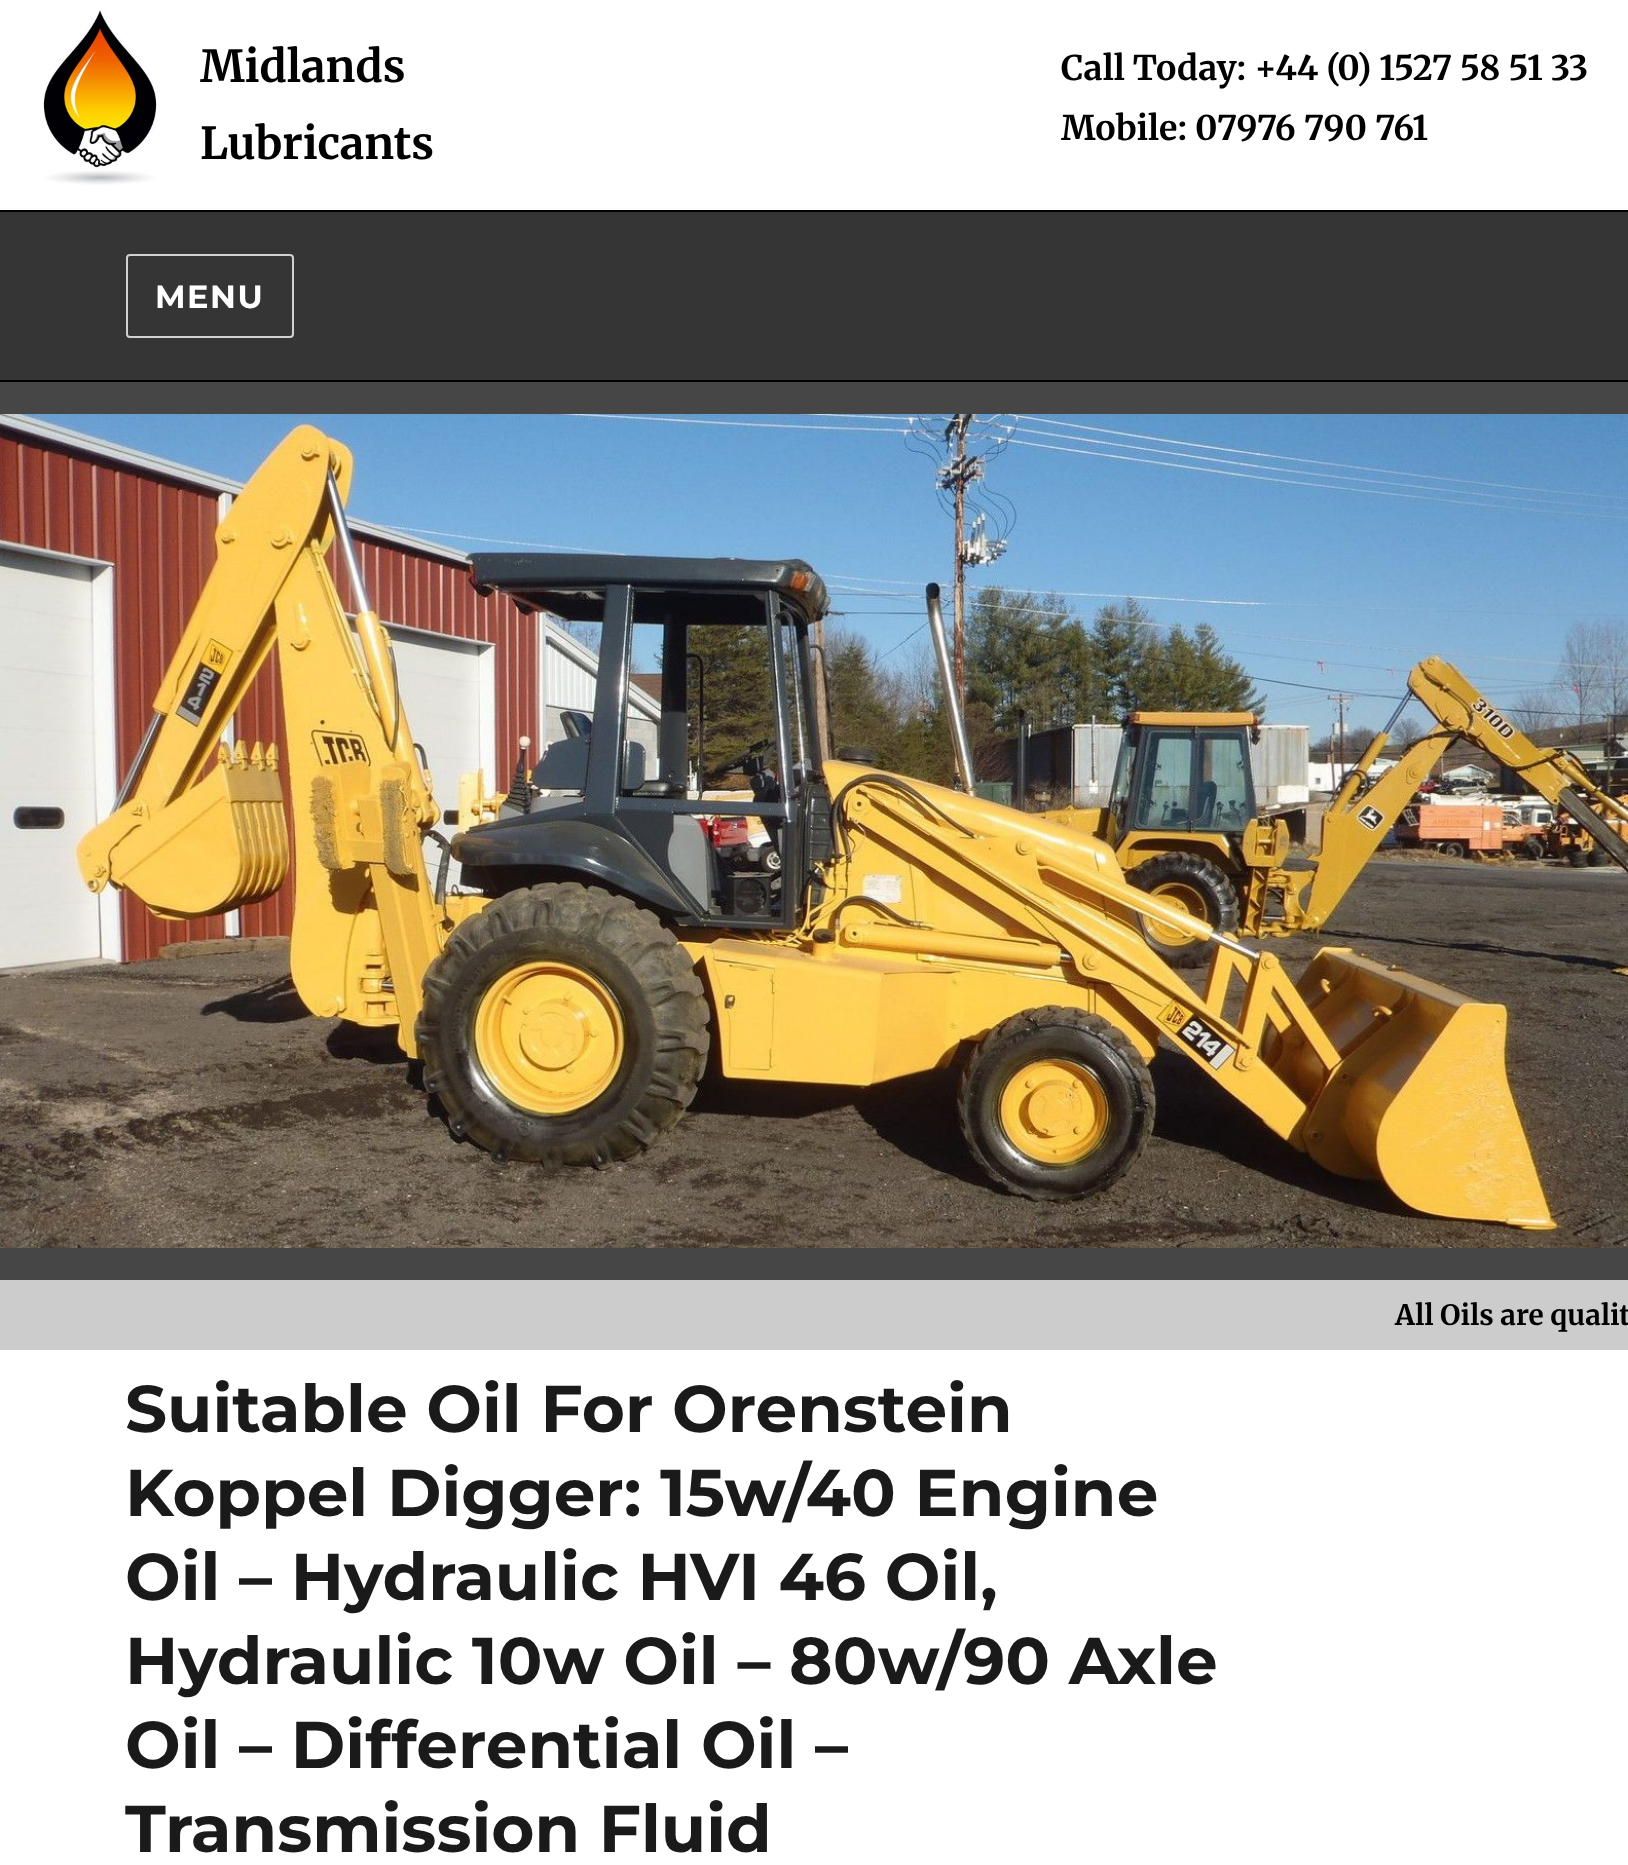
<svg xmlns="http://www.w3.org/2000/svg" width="1628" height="1865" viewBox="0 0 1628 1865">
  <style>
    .t1 { font: bold 44px Merriweather; fill: #000; }
    .t2 { font: bold 34px Merriweather; fill: #000; }
    .t3 { font: bold 32px Montserrat; letter-spacing: 1.5px; fill: #fff; }
    .t4 { font: bold 28px Merriweather; fill: #000; }
    .t5 { font: bold 66px Montserrat; fill: #1a1a1a; }
  </style>
  <rect width="100%" height="100%" fill="#fff"/>
  <image x="43" y="10" width="116" height="175" href="images/1.png"/>
  <text x="200" y="82" class="t1">Midlands</text>
  <text x="200" y="159" class="t1">Lubricants</text>
  <text x="1061" y="80" class="t2">Call Today: +44 (0) 1527 58 51 33</text>
  <text x="1061" y="140" class="t2">Mobile: 07976 790 761</text>
  <rect x="0" y="212" width="1628" height="168" fill="#353535"/>
  <rect x="0" y="210" width="1628" height="2" fill="#000"/>
  <rect x="0" y="380" width="1628" height="2" fill="#000"/>
  <rect x="127" y="255" width="166" height="82" rx="3" fill="none" stroke="#d1d1d1" stroke-width="2"/>
  <text x="155" y="308" class="t3">MENU</text>
  <rect x="0" y="382" width="1628" height="898" fill="#464646"/>
  <image x="0" y="414" width="1628" height="834" href="images/2.png"/>
  <rect x="0" y="1280" width="1628" height="70" fill="#ccc"/>
  <text x="1395" y="1325" class="t4">All Oils are qualit</text>
  <text x="125" y="1432" class="t5">Suitable Oil For Orenstein</text>
  <text x="125" y="1516" class="t5">Koppel Digger: 15w/40 Engine</text>
  <text x="125" y="1600" class="t5">Oil – Hydraulic HVI 46 Oil,</text>
  <text x="125" y="1684" class="t5">Hydraulic 10w Oil – 80w/90 Axle</text>
  <text x="125" y="1768" class="t5">Oil – Differential Oil –</text>
  <text x="125" y="1852" class="t5">Transmission Fluid</text>
</svg>
